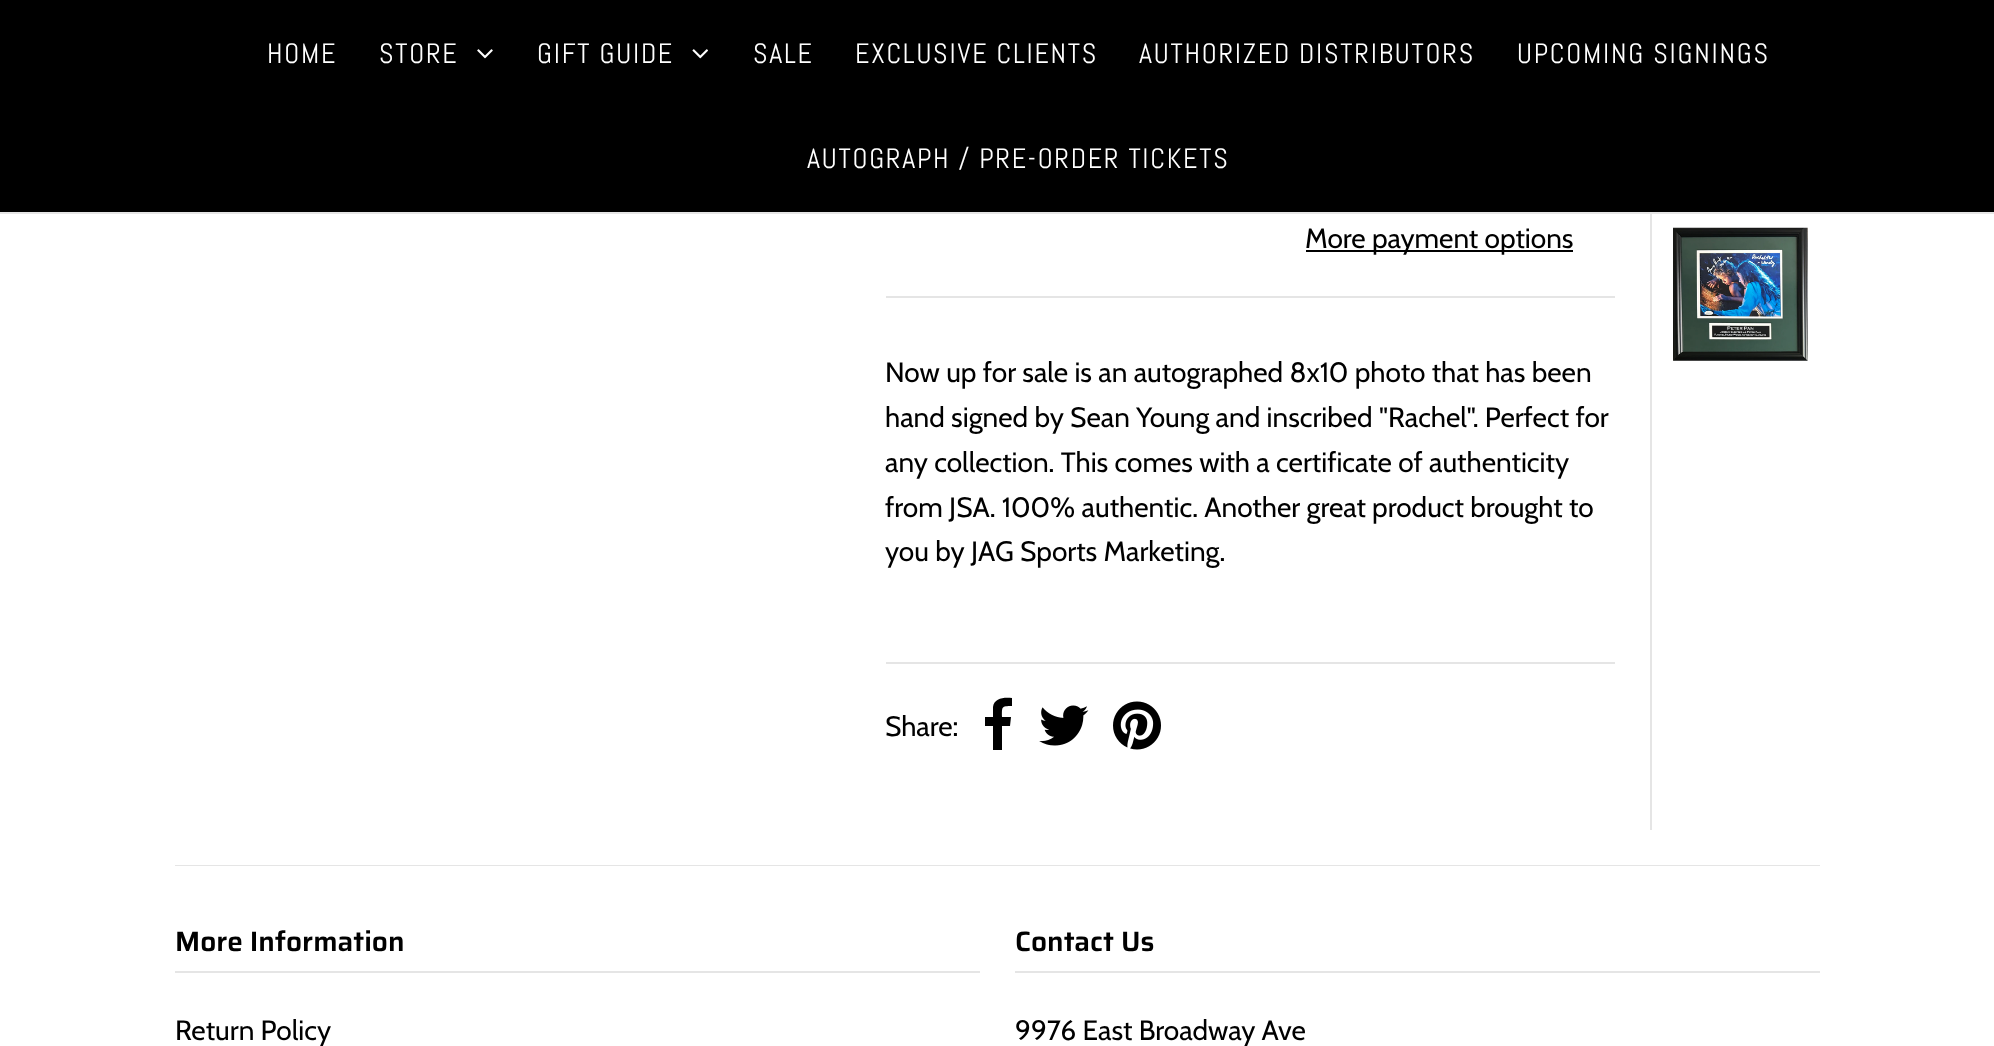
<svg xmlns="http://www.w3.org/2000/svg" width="1994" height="1046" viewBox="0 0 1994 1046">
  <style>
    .t1 { font: 28px Abel; letter-spacing: 1.75px; fill: #fff; }
    .t2 { font: 28px Cabin; fill: #000; }
    .t3 { font: 600 28px Saira; fill: #000; }
  </style>
  <rect width="100%" height="100%" fill="#fff"/>
  <rect x="0" y="0" width="1994" height="212" fill="#000"/>
  <rect x="0" y="212" width="1994" height="2" fill="#e5e5e5"/>
  <text x="267" y="63" class="t1">HOME</text>
  <text x="379" y="63" class="t1">STORE</text>
  <image x="477" y="49" width="16" height="10" href="images/1.png"/>
  <text x="537" y="63" class="t1">GIFT GUIDE</text>
  <image x="692" y="49" width="16" height="10" href="images/2.png"/>
  <text x="753" y="63" class="t1">SALE</text>
  <text x="855" y="63" class="t1">EXCLUSIVE CLIENTS</text>
  <text x="1139" y="63" class="t1">AUTHORIZED DISTRIBUTORS</text>
  <text x="1517" y="63" class="t1">UPCOMING SIGNINGS</text>
  <text x="807" y="168" class="t1">AUTOGRAPH / PRE-ORDER TICKETS</text>
  <rect x="1650" y="214" width="2" height="616" fill="#e5e5e5"/>
  <rect x="886" y="296" width="729" height="2" fill="#e5e5e5"/>
  <rect x="1306" y="250" width="267" height="2" fill="#000"/>
  <text x="1305" y="248" class="t2">More payment options</text>
  <text x="885" y="382" class="t2">Now up for sale is an autographed 8x10 photo that has been</text>
  <text x="885" y="427" class="t2">hand signed by Sean Young and inscribed "Rachel". Perfect for</text>
  <text x="885" y="472" class="t2">any collection. This comes with a certificate of authenticity</text>
  <text x="885" y="517" class="t2">from JSA. 100% authentic. Another great product brought to</text>
  <text x="885" y="561" class="t2">you by JAG Sports Marketing.</text>
  <rect x="886" y="662" width="729" height="2" fill="#e5e5e5"/>
  <text x="885" y="736" class="t2">Share:</text>
  <path d="M1012 698V706C1001 706 1002 707 1002 717H1011L1010 726H1002V750H993V726H985V717H993V707C994 698 1004 697 1012 698Z" fill="#000"/>
  <image x="1039" y="705" width="50" height="41" href="images/3.png"/>
  <image x="1113" y="701" width="48" height="49" href="images/4.png"/>
  <image x="1673" y="227" width="135" height="134" href="images/5.png"/>
  <rect x="175" y="865" width="1645" height="1" fill="#e5e5e5"/>
  <rect x="175" y="971" width="805" height="2" fill="#e5e5e5"/>
  <text x="175" y="951" class="t3">More Information</text>
  <text x="175" y="1040" class="t2">Return Policy</text>
  <rect x="1015" y="971" width="805" height="2" fill="#e5e5e5"/>
  <text x="1015" y="951" class="t3">Contact Us</text>
  <text x="1015" y="1040" class="t2">9976 East Broadway Ave</text>
</svg>
